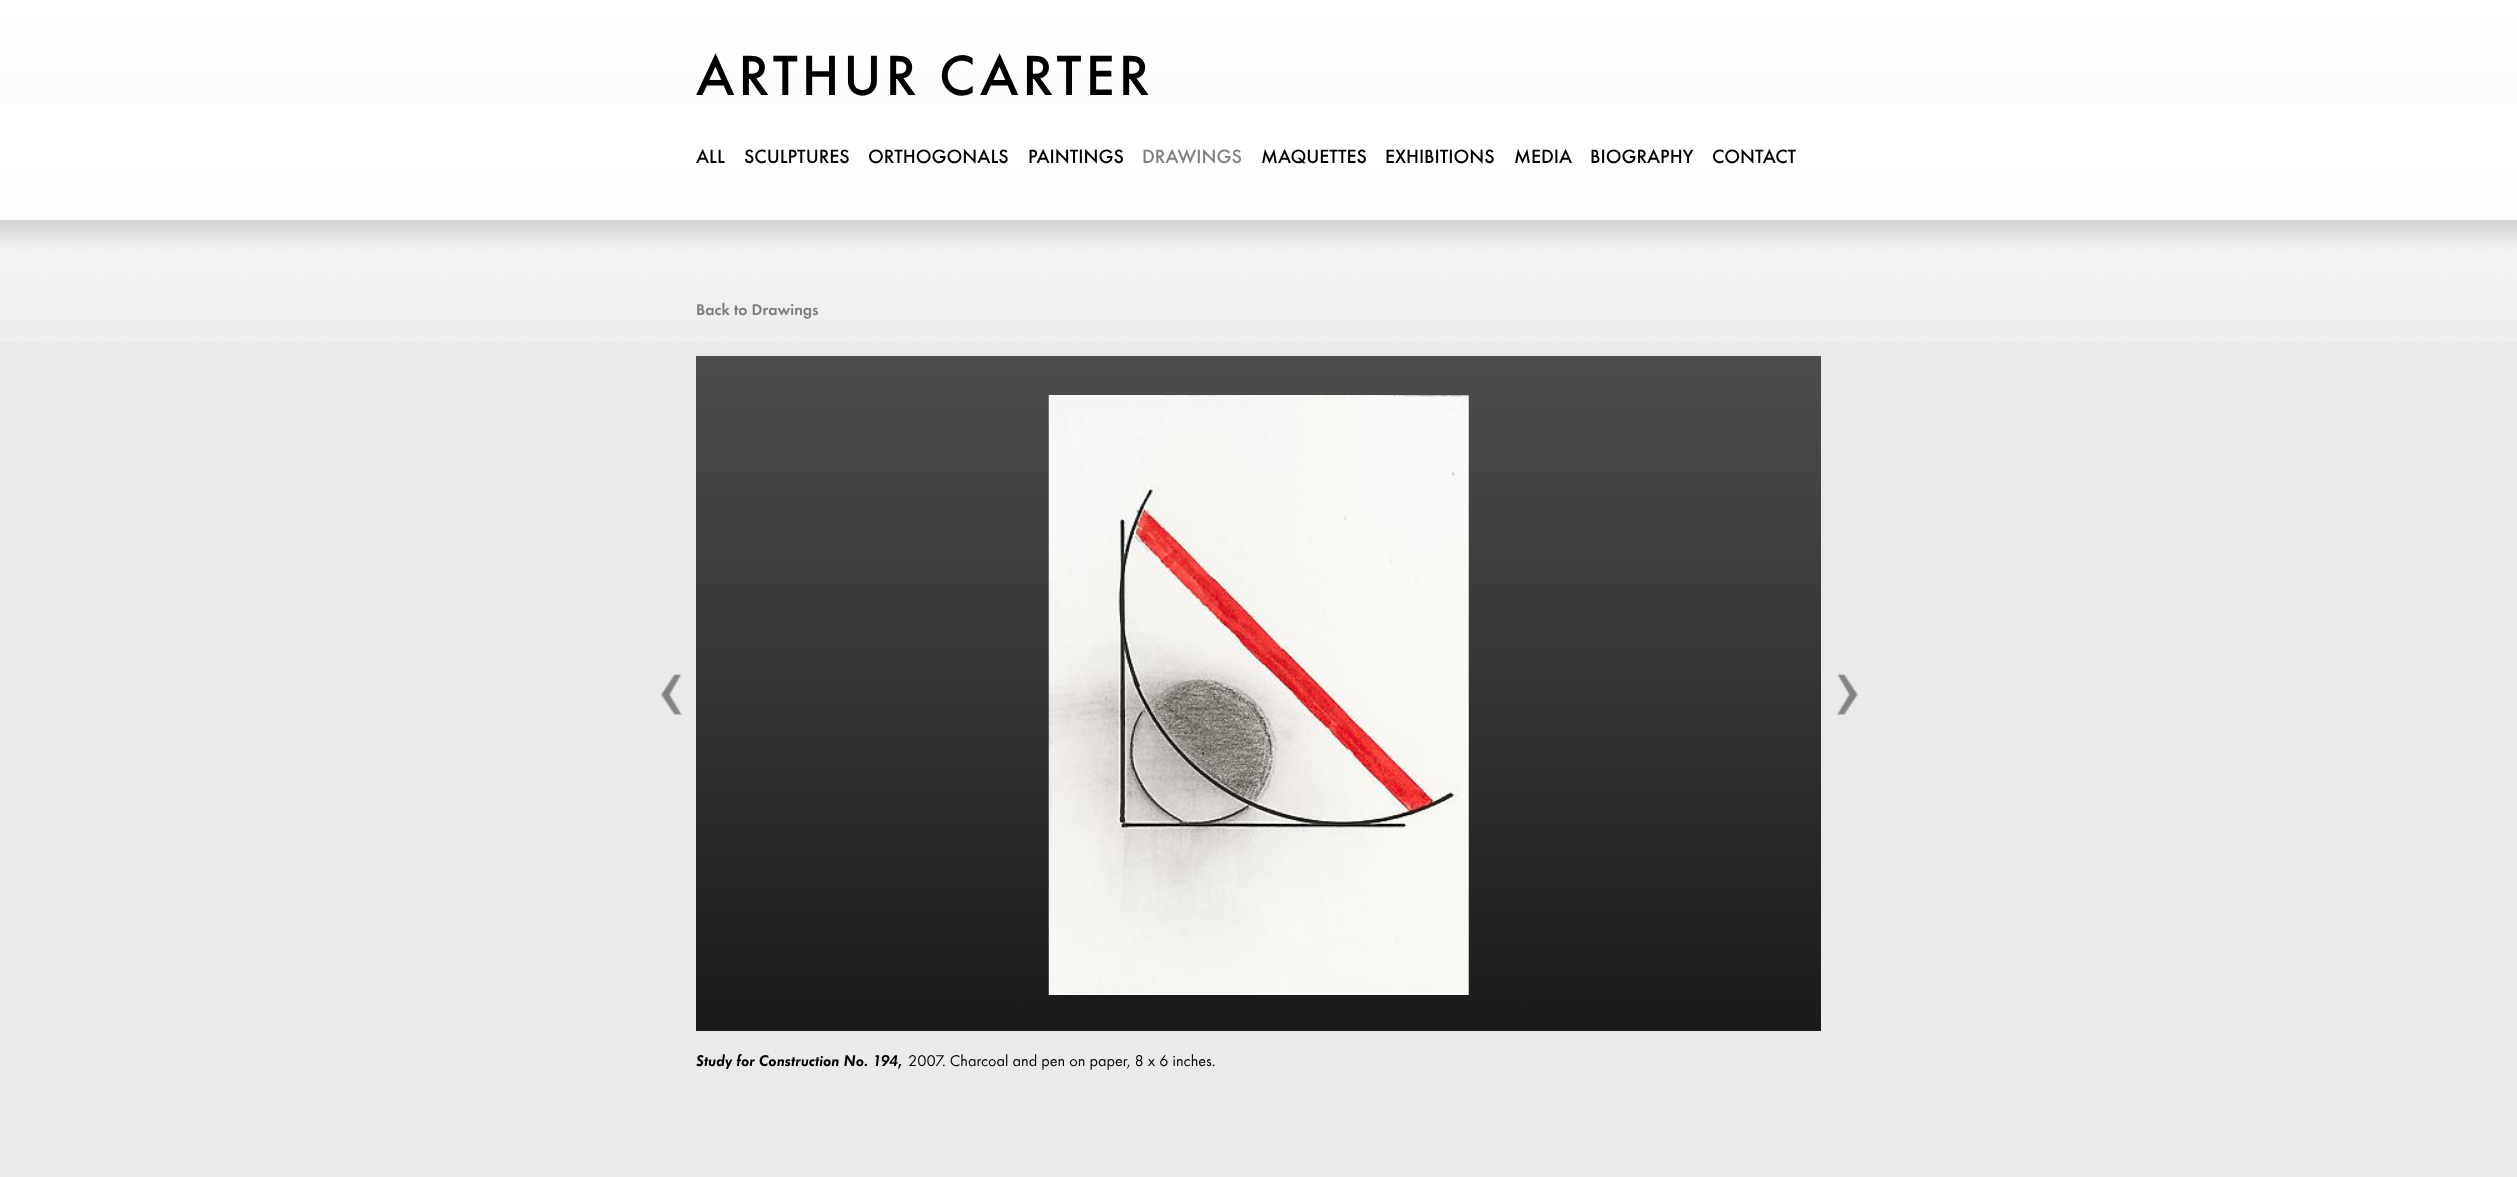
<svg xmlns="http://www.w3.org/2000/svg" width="2517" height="1177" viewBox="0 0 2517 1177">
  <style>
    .t1 { font: 500 58.75px Futura; letter-spacing: 3.75px; fill: #000; }
    .t2 { font: 500 20px Futura; fill: #000; }
    .t3 { font: 500 20px Futura; fill: #808080; }
    .t4 { font: 300 16.25px Futura; fill: #808080; }
    .t5 { font: italic 300 16.25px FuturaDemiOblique; fill: #000; }
    .t6 { font: 16.25px Futura; fill: #000; }
  </style>
  <defs>
    <linearGradient id="g1" gradientUnits="userSpaceOnUse" x1="1259" y1="356" x2="1259" y2="1031"><stop offset="0" stop-color="#4d4d4d"/><stop offset="1" stop-color="#1a1a1a"/></linearGradient>
  </defs>
  <rect width="100%" height="100%" fill="#eaeaea"/>
  <image x="0" y="0" width="2517" height="342" href="images/1.png"/>
  <rect x="0" y="104" width="2517" height="116" fill="#ffffffe6"/>
  <text x="696" y="95" class="t1">ARTHUR CARTER</text>
  <text x="696" y="163" class="t2">ALL</text>
  <text x="744" y="163" class="t2">SCULPTURES</text>
  <text x="868" y="163" class="t2">ORTHOGONALS</text>
  <text x="1028" y="163" class="t2">PAINTINGS</text>
  <text x="1142" y="163" class="t3">DRAWINGS</text>
  <text x="1261" y="163" class="t2">MAQUETTES</text>
  <text x="1385" y="163" class="t2">EXHIBITIONS</text>
  <text x="1514" y="163" class="t2">MEDIA</text>
  <text x="1590" y="163" class="t2">BIOGRAPHY</text>
  <text x="1712" y="163" class="t2">CONTACT</text>
  <text x="696" y="315" class="t4">Back to Drawings</text>
  <rect x="696" y="356" width="1125" height="675" fill="url(#g1)"/>
  <image x="1048" y="395" width="421" height="600" href="images/2.png"/>
  <image x="660" y="673" width="23" height="42" href="images/3.png"/>
  <image x="1836" y="673" width="23" height="42" href="images/4.png"/>
  <text x="696" y="1066" class="t5">Study for Construction No. 194,</text>
  <text x="908" y="1066" class="t6">2007. Charcoal and pen on paper, 8 x 6 inches.</text>
</svg>
